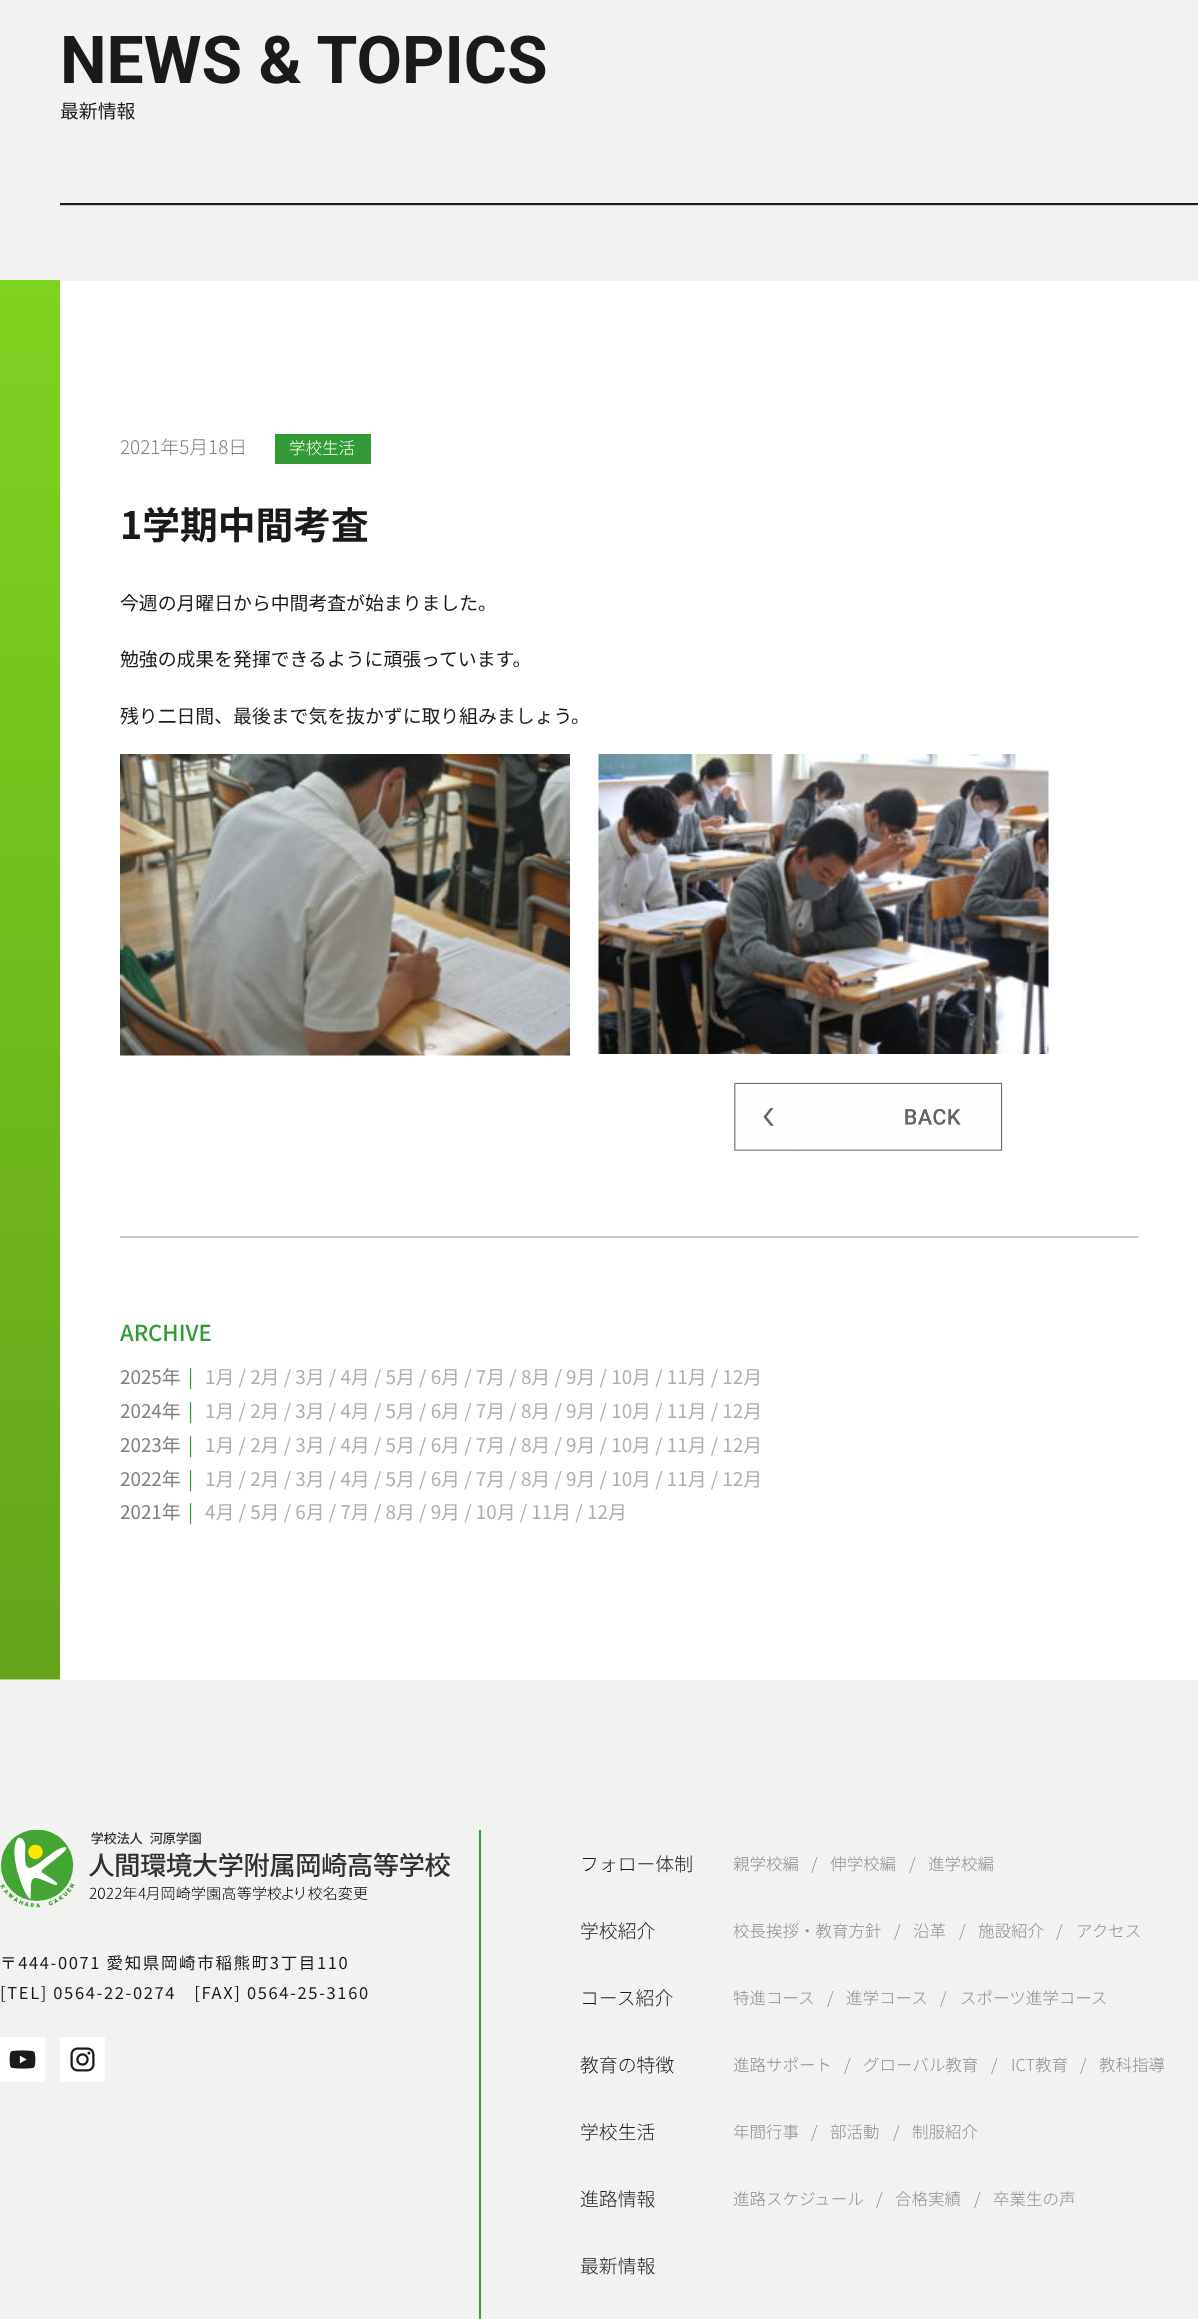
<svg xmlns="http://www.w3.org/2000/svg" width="1198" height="2319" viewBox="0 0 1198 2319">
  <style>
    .t1 { font: bold 66px Roboto; fill: #1a1a1a; }
    .t2 { font: 18.85px Noto Sans JP; fill: #1a1a1a; }
    .t3 { font: 300 18.85px Noto Sans JP; fill: #808080; }
    .t4 { font: 300 16.5px Noto Sans JP; fill: #fff; }
    .t5 { font: bold 37.75px Noto Sans JP; fill: #1a1a1a; }
    .t6 { font: 500 22px Noto Sans JP; fill: #329b35; }
    .t7 { font: 18.85px Noto Sans JP; fill: #808080; }
    .t8 { font: 18.85px Noto Sans JP; fill: #329b35; }
    .t9 { font: 18.85px Noto Sans JP; fill: #afafaf; }
    .t10 { font: 16.5px Noto Sans JP; letter-spacing: 1.65px; fill: #1a1a1a; }
    .t11 { font: 300 18.85px Noto Sans JP; fill: #1a1a1a; }
    .t12 { font: 300 16.5px Noto Sans JP; fill: #8e8e8e; }
  </style>
  <rect width="100%" height="100%" fill="#fff"/>
  <rect x="0" y="0" width="1198" height="281" fill="#f2f2f0"/>
  <text x="60" y="83" class="t1">NEWS &amp; TOPICS</text>
  <text x="60" y="118" class="t2">最新情報</text>
  <rect x="60" y="205" width="1138" height="1" fill="#ccc"/>
  <rect x="60" y="203" width="1138" height="2" fill="#1a1a1a"/>
  <image x="0" y="280" width="60" height="1400" href="images/1.png"/>
  <text x="120" y="454" class="t3">2021年5月18日</text>
  <rect x="275" y="434" width="96" height="30" fill="#329b35"/>
  <text x="289" y="454" class="t4">学校生活</text>
  <text x="120" y="539" class="t5">1学期中間考査</text>
  <text x="120" y="610" class="t2">今週の月曜日から中間考査が始まりました。</text>
  <text x="120" y="666" class="t2">勉強の成果を発揮できるように頑張っています。</text>
  <text x="120" y="723" class="t2">残り二日間、最後まで気を抜かずに取り組みましょう。</text>
  <image x="120" y="754" width="450" height="302" href="images/2.png"/>
  <image x="598" y="754" width="451" height="300" href="images/3.png"/>
  <image x="734" y="1082" width="269" height="69" href="images/4.png"/>
  <rect x="120" y="1236" width="1019" height="2" fill="#ccc"/>
  <text x="120" y="1341" class="t6">ARCHIVE</text>
  <text x="120" y="1384" class="t7">2025年</text>
  <text x="188" y="1384" class="t8">|</text>
  <text x="205" y="1384" class="t9">1月 / 2月 / 3月 / 4月 / 5月 / 6月 / 7月 / 8月 / 9月 / 10月 / 11月 / 12月</text>
  <text x="120" y="1418" class="t7">2024年</text>
  <text x="188" y="1418" class="t8">|</text>
  <text x="205" y="1418" class="t9">1月 / 2月 / 3月 / 4月 / 5月 / 6月 / 7月 / 8月 / 9月 / 10月 / 11月 / 12月</text>
  <text x="120" y="1452" class="t7">2023年</text>
  <text x="188" y="1452" class="t8">|</text>
  <text x="205" y="1452" class="t9">1月 / 2月 / 3月 / 4月 / 5月 / 6月 / 7月 / 8月 / 9月 / 10月 / 11月 / 12月</text>
  <text x="120" y="1486" class="t7">2022年</text>
  <text x="188" y="1486" class="t8">|</text>
  <text x="205" y="1486" class="t9">1月 / 2月 / 3月 / 4月 / 5月 / 6月 / 7月 / 8月 / 9月 / 10月 / 11月 / 12月</text>
  <text x="120" y="1519" class="t7">2021年</text>
  <text x="188" y="1519" class="t8">|</text>
  <text x="205" y="1519" class="t9">4月 / 5月 / 6月 / 7月 / 8月 / 9月 / 10月 / 11月 / 12月</text>
  <rect x="0" y="1680" width="1198" height="639" fill="#f2f2f0"/>
  <rect x="479" y="1830" width="2" height="489" fill="#329b35"/>
  <image x="0" y="1830" width="450" height="78" href="images/5.png"/>
  <text x="0" y="1969" class="t10">〒444-0071 愛知県岡崎市稲熊町3丁目110</text>
  <text x="0" y="1999" class="t10">[TEL] 0564-22-0274　[FAX] 0564-25-3160</text>
  <image x="0" y="2037" width="45" height="45" href="images/6.png"/>
  <image x="60" y="2037" width="45" height="45" href="images/7.png"/>
  <text x="580" y="1871" class="t11">フォロー体制</text>
  <text x="733" y="1870" class="t12">親学校編</text>
  <text x="811" y="1870" class="t12">/</text>
  <text x="830" y="1870" class="t12">伸学校編</text>
  <text x="909" y="1870" class="t12">/</text>
  <text x="928" y="1870" class="t12">進学校編</text>
  <text x="580" y="1938" class="t11">学校紹介</text>
  <text x="733" y="1937" class="t12">校長挨拶・教育方針</text>
  <text x="894" y="1937" class="t12">/</text>
  <text x="913" y="1937" class="t12">沿革</text>
  <text x="959" y="1937" class="t12">/</text>
  <text x="978" y="1937" class="t12">施設紹介</text>
  <text x="1056" y="1937" class="t12">/</text>
  <text x="1076" y="1937" class="t12">アクセス</text>
  <text x="580" y="2005" class="t11">コース紹介</text>
  <text x="733" y="2004" class="t12">特進コース</text>
  <text x="827" y="2004" class="t12">/</text>
  <text x="846" y="2004" class="t12">進学コース</text>
  <text x="940" y="2004" class="t12">/</text>
  <text x="960" y="2004" class="t12">スポーツ進学コース</text>
  <text x="580" y="2072" class="t11">教育の特徴</text>
  <text x="733" y="2071" class="t12">進路サポート</text>
  <text x="844" y="2071" class="t12">/</text>
  <text x="863" y="2071" class="t12">グローバル教育</text>
  <text x="991" y="2071" class="t12">/</text>
  <text x="1011" y="2071" class="t12">ICT教育</text>
  <text x="1080" y="2071" class="t12">/</text>
  <text x="1099" y="2071" class="t12">教科指導</text>
  <text x="580" y="2139" class="t11">学校生活</text>
  <text x="733" y="2138" class="t12">年間行事</text>
  <text x="811" y="2138" class="t12">/</text>
  <text x="830" y="2138" class="t12">部活動</text>
  <text x="893" y="2138" class="t12">/</text>
  <text x="912" y="2138" class="t12">制服紹介</text>
  <text x="580" y="2206" class="t11">進路情報</text>
  <text x="733" y="2205" class="t12">進路スケジュール</text>
  <text x="876" y="2205" class="t12">/</text>
  <text x="895" y="2205" class="t12">合格実績</text>
  <text x="974" y="2205" class="t12">/</text>
  <text x="993" y="2205" class="t12">卒業生の声</text>
  <text x="580" y="2273" class="t11">最新情報</text>
</svg>
